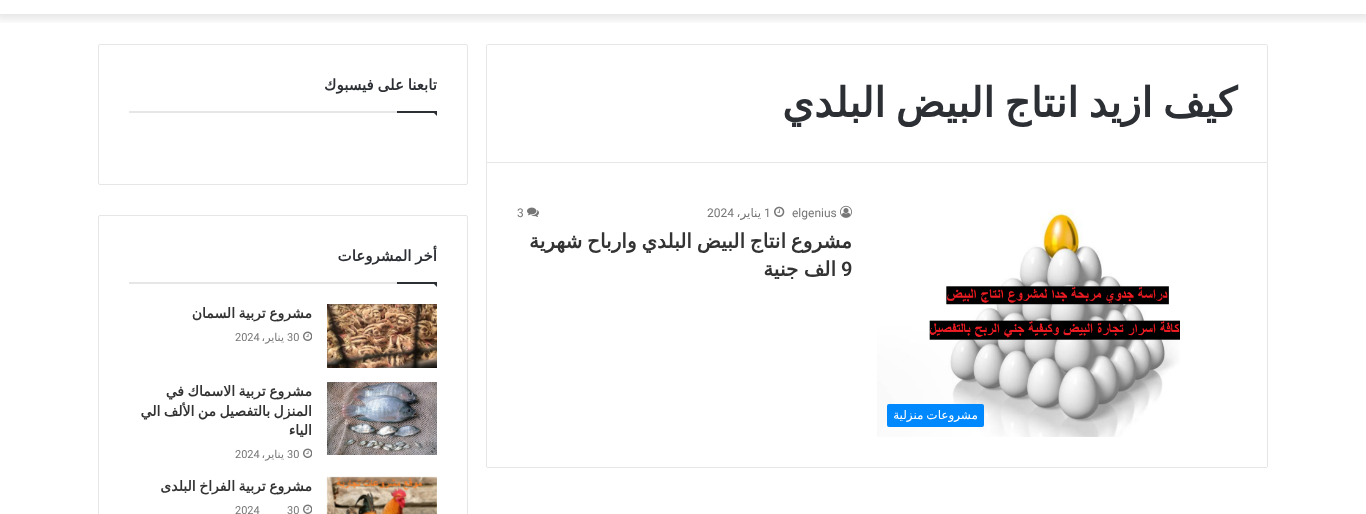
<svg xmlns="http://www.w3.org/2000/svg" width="1366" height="514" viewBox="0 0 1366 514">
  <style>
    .t1 { font: bold 41px DejaVu Sans; direction: rtl; fill: #2c2f34; }
    .t2 { font: 12px Roboto; fill: #767676; }
    .t3 { font: 12px DejaVu Sans; direction: rtl; fill: #767676; }
    .t4 { font: bold 20px DejaVu Sans; direction: rtl; fill: #333; }
    .t5 { font: 600 20px Roboto; fill: #333; }
    .t6 { font: 12px DejaVu Sans; direction: rtl; fill: #fff; }
    .t7 { font: bold 15px DejaVu Sans; direction: rtl; fill: #2c2f34; }
    .t8 { font: bold 14px DejaVu Sans; direction: rtl; fill: #333; }
    .t9 { font: 11px Roboto; fill: #767676; }
    .t10 { font: 11px DejaVu Sans; direction: rtl; fill: #767676; }
  </style>
  <defs>
    <clipPath id="clip1"><rect x="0" y="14" width="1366" height="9"/></clipPath>
  </defs>
  <rect width="100%" height="100%" fill="#fff"/>
  <g clip-path="url(#clip1)">
    <rect x="-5" y="-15" width="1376" height="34" fill="#0000001a" filter="blur(5px)"/>
  </g>
  <path d="M488 44.5H1266C1267 44.5 1267.5 45 1267.5 46V162.5H486.5V46C486.5 45 487 44.5 488 44.5Z" fill="none" stroke="#e6e6e6"/>
  <text x="1237" y="117" word-spacing="-3" class="t1">كيف ازيد انتاج البيض البلدي</text>
  <rect x="1267" y="163" width="1" height="304" fill="#e6e6e6"/>
  <rect x="487" y="467" width="780" height="1" fill="#e6e6e6"/>
  <rect x="486" y="163" width="1" height="304" fill="#e6e6e6"/>
  <image x="840" y="205" width="12" height="13" href="images/1.png"/>
  <text x="792" y="217" class="t2">elgenius</text>
  <image x="774" y="206" width="11" height="11" href="images/2.png"/>
  <text x="764" y="217" class="t2">1</text>
  <text x="761" y="217" class="t3">يناير،</text>
  <text x="707" y="217" class="t2">2024</text>
  <image x="527" y="207" width="12" height="10" href="images/3.png"/>
  <text x="517" y="217" class="t2">3</text>
  <text x="852" y="248" word-spacing="-1.5" class="t4">مشروع انتاج البيض البلدي وارباح شهرية</text>
  <text x="841" y="276" class="t5">9</text>
  <text x="836" y="276" word-spacing="-1" class="t4">الف جنية</text>
  <image x="877" y="209" width="303" height="228" href="images/4.png"/>
  <rect x="887" y="404" width="97" height="23" rx="2" fill="#08f"/>
  <text x="978" y="419" word-spacing="-1" class="t6">مشروعات منزلية</text>
  <rect x="98.5" y="44.5" width="369" height="140" rx="1.5" fill="none" stroke="#e6e6e6"/>
  <rect x="129" y="111" width="268" height="2" fill="#e6e6e6"/>
  <text x="437" y="90" word-spacing="-1" class="t7">تابعنا على فيسبوك</text>
  <path d="M432 111H437V116Z" fill="#2c2f34"/>
  <rect x="397" y="111" width="40" height="2" fill="#2c2f34"/>
  <rect x="98.5" y="215.5" width="369" height="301" rx="1.5" fill="none" stroke="#e6e6e6"/>
  <rect x="129" y="282" width="268" height="2" fill="#e6e6e6"/>
  <text x="437" y="261" word-spacing="-1" class="t7">أخر المشروعات</text>
  <path d="M432 282H437V287Z" fill="#2c2f34"/>
  <rect x="397" y="282" width="40" height="2" fill="#2c2f34"/>
  <image x="327" y="304" width="110" height="64" href="images/5.png"/>
  <text x="312" y="318" word-spacing="-1" class="t8">مشروع تربية السمان</text>
  <image x="303" y="331" width="9" height="10" href="images/6.png"/>
  <text x="287" y="341" class="t9">30</text>
  <text x="284" y="341" class="t10">يناير،</text>
  <text x="235" y="341" class="t9">2024</text>
  <image x="327" y="382" width="110" height="73" href="images/7.png"/>
  <text x="312" y="396" word-spacing="-1" class="t8">مشروع تربية الاسماك في</text>
  <text x="312" y="416" word-spacing="-1" class="t8">المنزل بالتفصيل من الألف الي</text>
  <text x="312" y="435" class="t8">الياء</text>
  <image x="303" y="448" width="9" height="10" href="images/6.png"/>
  <text x="287" y="458" class="t9">30</text>
  <text x="284" y="458" class="t10">يناير،</text>
  <text x="235" y="458" class="t9">2024</text>
  <image x="326" y="476" width="111" height="38" href="images/8.png"/>
  <text x="312" y="491" word-spacing="-1" class="t8">مشروع تربية الفراخ البلدى</text>
  <image x="303" y="504" width="9" height="10" href="images/6.png"/>
  <text x="287" y="514" class="t9">30</text>
  <text x="235" y="514" class="t9">2024</text>
</svg>
